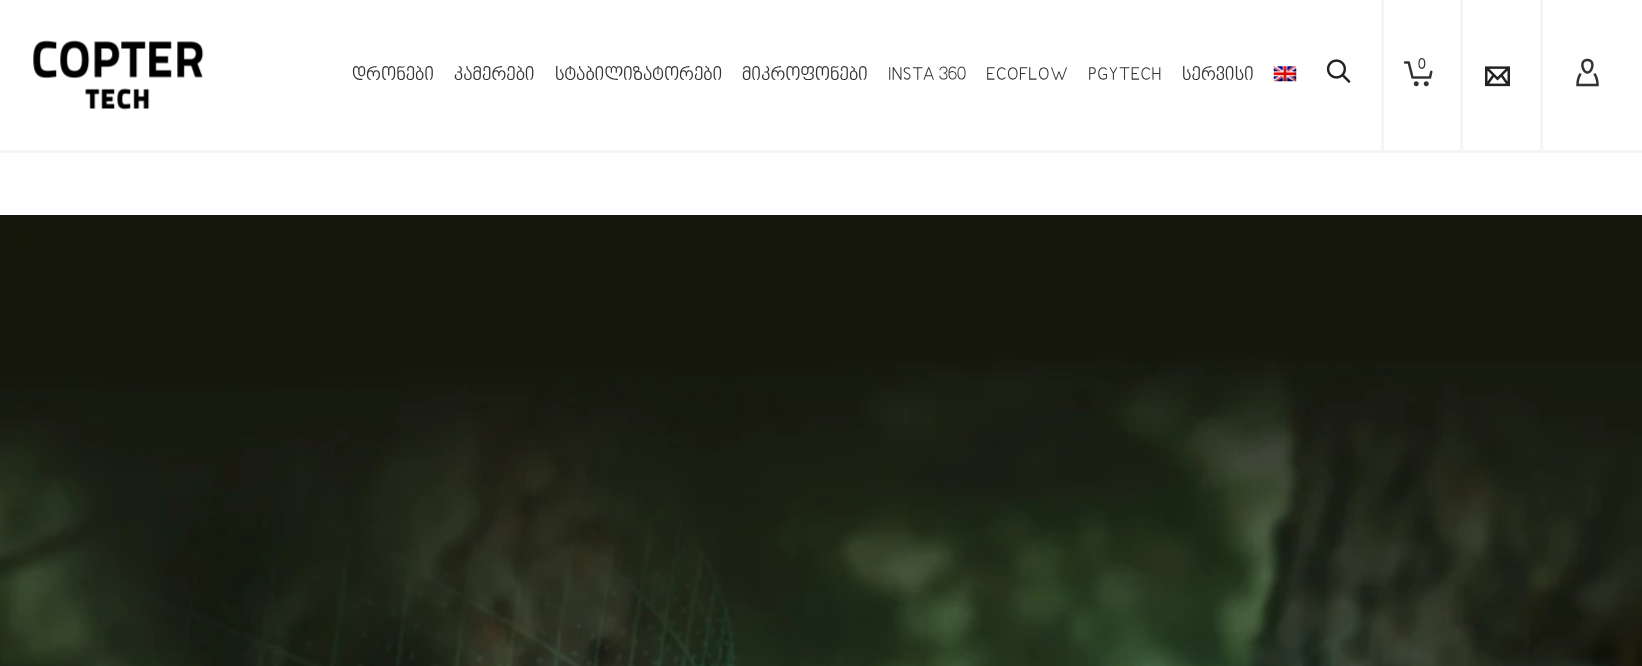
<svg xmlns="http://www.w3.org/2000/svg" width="1642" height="666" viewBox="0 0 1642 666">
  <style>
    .t1 { font: bold 15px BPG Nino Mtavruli; fill: #333; }
    .t2 { font: 18.75px BPG Nino Mtavruli; fill: #333; }
  </style>
  <rect width="100%" height="100%" fill="#fff"/>
  <rect x="0" y="150" width="1642" height="3" fill="#f5f5f5"/>
  <image x="33" y="40" width="171" height="70" href="images/1.png"/>
  <image x="1326" y="59" width="25" height="24" href="images/2.png"/>
  <rect x="1381" y="0" width="3" height="150" fill="#f5f5f5"/>
  <image x="1403" y="61" width="30" height="26" href="images/3.png"/>
  <text x="1418" y="70" class="t1">0</text>
  <rect x="1460" y="0" width="3" height="150" fill="#f5f5f5"/>
  <image x="1485" y="66" width="25" height="21" href="images/4.png"/>
  <rect x="1540" y="0" width="3" height="150" fill="#f5f5f5"/>
  <image x="1576" y="58" width="23" height="29" href="images/5.png"/>
  <text x="352" y="81" class="t2">დრონები</text>
  <text x="454" y="81" class="t2">კამერები</text>
  <text x="555" y="81" class="t2">სტაბილიზატორები</text>
  <text x="742" y="81" class="t2">მიკროფონები</text>
  <text x="888" y="81" class="t2">INSTA 360</text>
  <text x="986" y="81" class="t2">ECOFLOW</text>
  <text x="1088" y="81" class="t2">PGYTECH</text>
  <text x="1182" y="81" class="t2">სერვისი</text>
  <image x="1273" y="66" width="24" height="16" href="images/6.png"/>
  <image x="0" y="215" width="1642" height="451" href="images/7.png"/>
</svg>
